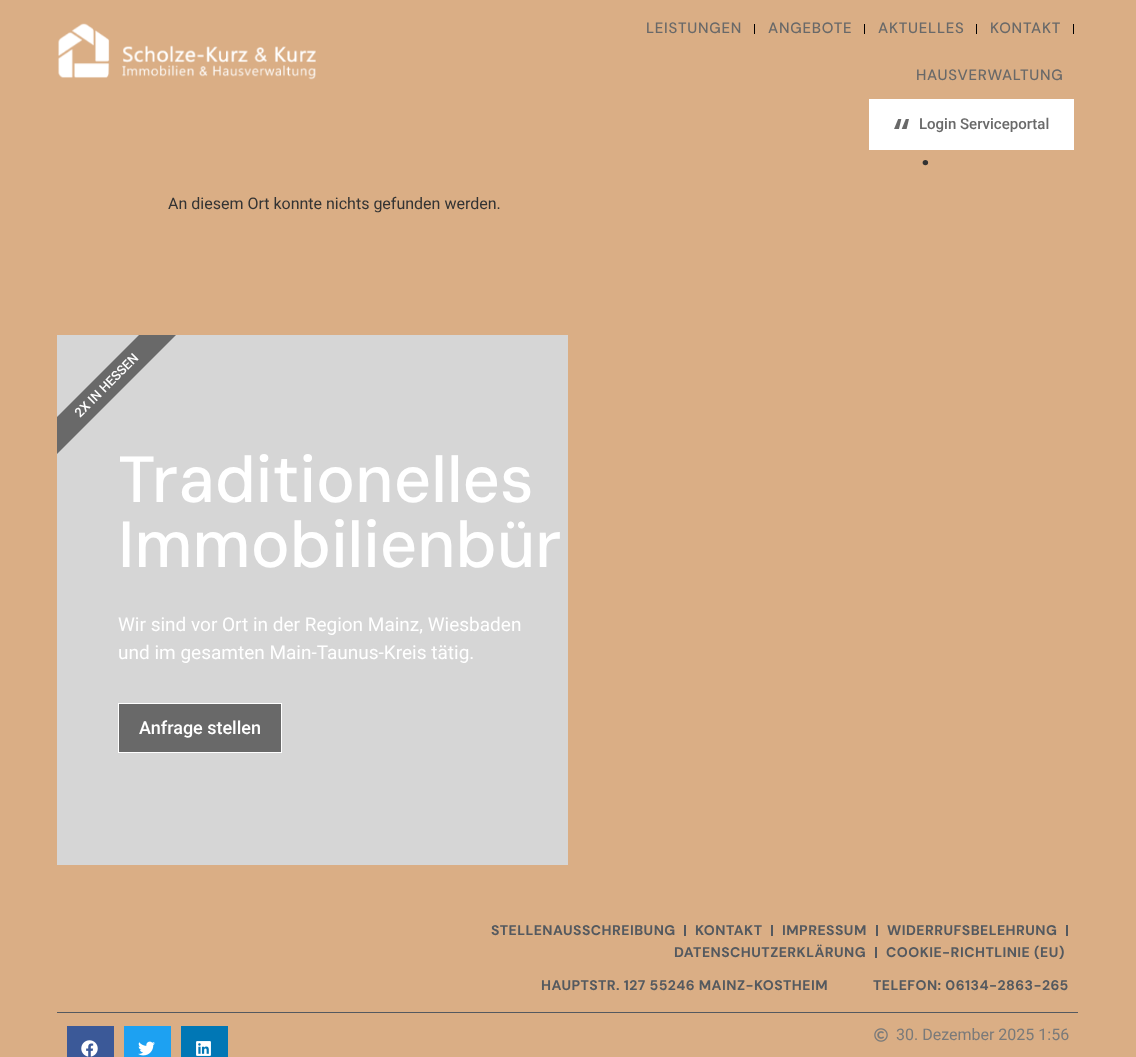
<svg xmlns="http://www.w3.org/2000/svg" width="1136" height="1057" viewBox="0 0 1136 1057">
  <style>
    .t1 { font: 500 15px 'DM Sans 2'; letter-spacing: 0.75px; fill: #696969; }
    .t2 { font: 500 15px Roboto; fill: #696969; }
    .t3 { font: 500 40px Roboto; fill: #333; }
    .t4 { font: 16px Roboto; fill: #333; }
    .t5 { font: 500 65px DM Sans; fill: #fff; }
    .t6 { font: 500 13px Roboto; fill: #fff; }
    .t7 { font: 19px Roboto; fill: #fff; }
    .t8 { font: 500 18px Roboto; fill: #fff; }
    .t9 { font: bold 14px DM Sans; letter-spacing: 0.45px; fill: #54595f; }
    .t10 { font: 16px Roboto; fill: #7a7a7a; }
  </style>
  <defs>
    <clipPath id="clip1"><rect x="57" y="335" width="150" height="150"/></clipPath>
  </defs>
  <rect width="100%" height="100%" fill="#daae85"/>
  <image x="58" y="23" width="258" height="57" href="images/1.png"/>
  <text x="646" y="33" class="t1">LEISTUNGEN</text>
  <rect x="754" y="24" width="1" height="10" fill="#000"/>
  <text x="768" y="33" class="t1">ANGEBOTE</text>
  <rect x="864" y="24" width="1" height="10" fill="#000"/>
  <text x="878" y="33" class="t1">AKTUELLES</text>
  <rect x="976" y="24" width="1" height="10" fill="#000"/>
  <text x="990" y="33" class="t1">KONTAKT</text>
  <rect x="1073" y="24" width="1" height="10" fill="#000"/>
  <text x="916" y="80" class="t1">HAUSVERWALTUNG</text>
  <rect x="869" y="99" width="205" height="51" fill="#fff"/>
  <image x="894" y="119" width="15" height="10" href="images/2.png"/>
  <text x="919" y="129" class="t2">Login Serviceportal</text>
  <text x="920" y="165" class="t3">.</text>
  <text x="168" y="209" class="t4">An diesem Ort konnte nichts gefunden werden.</text>
  <rect x="57" y="335" width="511" height="530" fill="#d6d6d6"/>
  <text x="118" y="502" class="t5">Traditionelles</text>
  <g clip-path="url(#clip1)">
    <path d="M-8 482L204 270L222 289L10 501Z" fill="#696969"/>
  </g>
  <text x="80" y="418" transform="rotate(-45 80 418)" class="t6">2X IN HESSEN</text>
  <text x="118" y="567" class="t5">Immobilienbür</text>
  <text x="118" y="631" class="t7">Wir sind vor Ort in der Region Mainz, Wiesbaden</text>
  <text x="118" y="659" class="t7">und im gesamten Main-Taunus-Kreis tätig.</text>
  <rect x="118.5" y="703.5" width="163" height="49" fill="#696969" stroke="#fff"/>
  <text x="139" y="734" class="t8">Anfrage stellen</text>
  <text x="491" y="935" class="t9">STELLENAUSSCHREIBUNG</text>
  <rect x="684" y="925" width="2" height="11" fill="#54595f"/>
  <text x="695" y="935" class="t9">KONTAKT</text>
  <rect x="771" y="925" width="2" height="11" fill="#54595f"/>
  <text x="782" y="935" class="t9">IMPRESSUM</text>
  <rect x="876" y="925" width="2" height="11" fill="#54595f"/>
  <text x="887" y="935" class="t9">WIDERRUFSBELEHRUNG</text>
  <rect x="1066" y="925" width="2" height="11" fill="#54595f"/>
  <text x="674" y="957" class="t9">DATENSCHUTZERKLÄRUNG</text>
  <rect x="875" y="947" width="2" height="11" fill="#54595f"/>
  <text x="886" y="957" class="t9">COOKIE-RICHTLINIE (EU)</text>
  <text x="541" y="990" class="t9">HAUPTSTR. 127 55246 MAINZ-KOSTHEIM</text>
  <text x="873" y="990" class="t9">TELEFON: 06134-2863-265</text>
  <rect x="57" y="1012" width="1021" height="1" fill="#54595f"/>
  <rect x="68" y="1027" width="45" height="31" fill="none" stroke="#3b5998" stroke-width="2"/>
  <rect x="69" y="1028" width="43" height="29" fill="#3b5998"/>
  <image x="81" y="1040" width="17" height="17" href="images/3.png"/>
  <rect x="125" y="1027" width="45" height="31" fill="none" stroke="#1da1f2" stroke-width="2"/>
  <rect x="126" y="1028" width="43" height="29" fill="#1da1f2"/>
  <image x="138" y="1041" width="17" height="15" href="images/4.png"/>
  <rect x="182" y="1027" width="45" height="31" fill="none" stroke="#0077b5" stroke-width="2"/>
  <rect x="183" y="1028" width="43" height="29" fill="#0077b5"/>
  <image x="196" y="1041" width="15" height="15" href="images/5.png"/>
  <image x="874" y="1028" width="14" height="14" href="images/6.png"/>
  <text x="896" y="1040" class="t10">30. Dezember 2025 1:56</text>
</svg>
